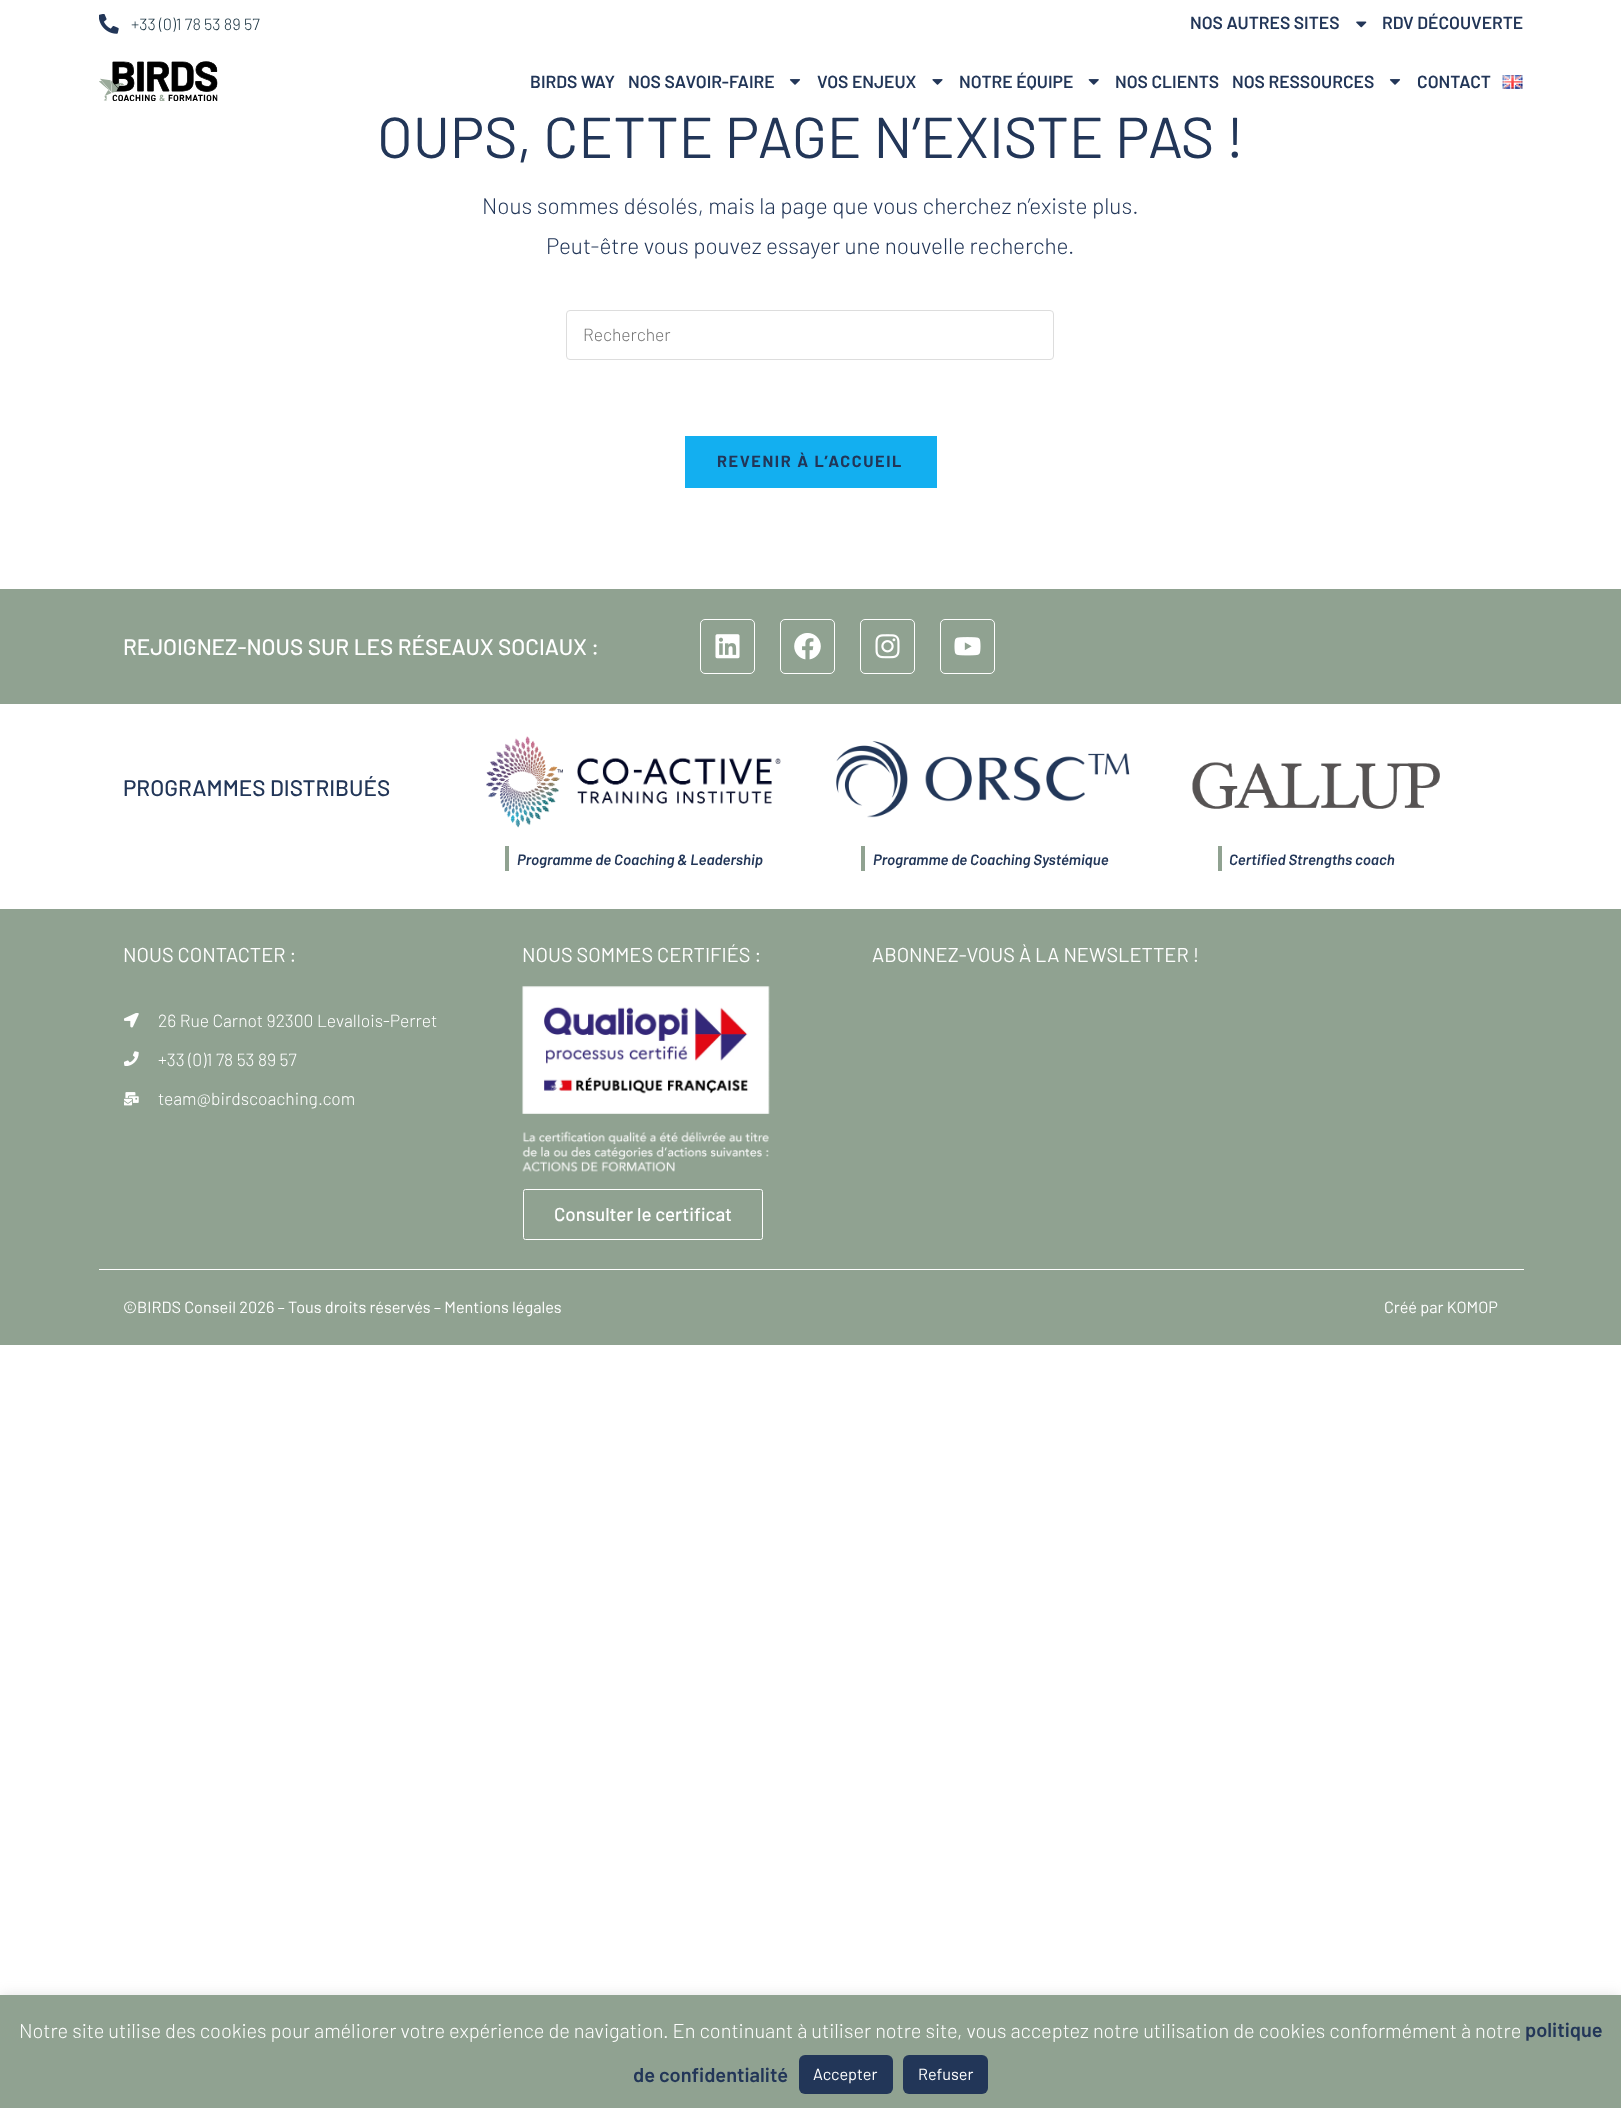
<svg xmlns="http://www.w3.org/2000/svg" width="1621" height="2108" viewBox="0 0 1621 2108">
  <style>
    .t1 { font: 300 16.25px Barlow; fill: #162f3d; }
    .t2 { font: 600 17.5px Barlow; fill: #223658; }
    .t3 { font: 57.5px Barlow; fill: #223658; }
    .t4 { font: 300 22.5px Barlow; fill: #223658; }
    .t5 { font: 300 17.5px Barlow; fill: #757575; }
    .t6 { font: bold 16.25px Barlow; letter-spacing: 1.6px; fill: #223658; }
    .t7 { font: 500 22.5px Barlow; fill: #fff; }
    .t8 { font: 500 22.5px Barlow; fill: #223658; }
    .t9 { font: italic 600 15px Barlow; fill: #223658; }
    .t10 { font: 20px Barlow; fill: #fff; }
    .t11 { font: 300 17.5px Barlow; fill: #fff; }
    .t12 { font: 500 18.75px Barlow; fill: #fff; }
    .t13 { font: 16.25px Barlow; fill: #fff; }
    .t14 { font: 300 20px Barlow; fill: #fff; }
    .t15 { font: 600 20px Barlow; fill: #223658; }
  </style>
  <rect width="100%" height="100%" fill="#fff"/>
  <image x="99" y="14" width="20" height="20" href="images/1.png"/>
  <text x="131" y="30" class="t1">+33 (0)1 78 53 89 57</text>
  <text x="1190" y="29" class="t2">NOS AUTRES SITES</text>
  <image x="1356" y="21" width="11" height="7" href="images/2.png"/>
  <text x="1382" y="29" class="t2">RDV DÉCOUVERTE</text>
  <image x="99" y="61" width="119" height="40" href="images/3.png"/>
  <text x="530" y="88" class="t2">BIRDS WAY</text>
  <text x="628" y="88" class="t2">NOS SAVOIR-FAIRE</text>
  <image x="789" y="79" width="12" height="6" href="images/4.png"/>
  <text x="817" y="88" class="t2">VOS ENJEUX</text>
  <image x="932" y="79" width="11" height="6" href="images/5.png"/>
  <text x="959" y="88" class="t2">NOTRE ÉQUIPE</text>
  <image x="1088" y="79" width="11" height="6" href="images/6.png"/>
  <text x="1115" y="88" class="t2">NOS CLIENTS</text>
  <text x="1232" y="88" class="t2">NOS RESSOURCES</text>
  <image x="1389" y="79" width="12" height="6" href="images/4.png"/>
  <text x="1417" y="88" class="t2">CONTACT</text>
  <image x="1502" y="75" width="21" height="14" href="images/7.png"/>
  <text x="377" y="158" class="t3">OUPS, CETTE PAGE N’EXISTE PAS !</text>
  <text x="482" y="214" class="t4">Nous sommes désolés, mais la page que vous cherchez n’existe plus.</text>
  <text x="546" y="254" class="t4">Peut-être vous pouvez essayer une nouvelle recherche.</text>
  <rect x="566.5" y="310.5" width="487" height="49" rx="3.5" fill="none" stroke="#ddd"/>
  <text x="583" y="341" class="t5">Rechercher</text>
  <rect x="685" y="436" width="252" height="52" fill="#13aff0"/>
  <text x="717" y="467" class="t6">REVENIR À L’ACCUEIL</text>
  <rect x="0" y="589" width="1621" height="115" fill="#90a291"/>
  <text x="123" y="655" class="t7">REJOIGNEZ-NOUS SUR LES RÉSEAUX SOCIAUX :</text>
  <rect x="700.5" y="619.5" width="54" height="54" rx="4.5" fill="none" stroke="#fff"/>
  <image x="715" y="634" width="25" height="25" href="images/8.png"/>
  <rect x="780.5" y="619.5" width="54" height="54" rx="4.5" fill="none" stroke="#fff"/>
  <image x="794" y="633" width="27" height="27" href="images/9.png"/>
  <rect x="860.5" y="619.5" width="54" height="54" rx="4.5" fill="none" stroke="#fff"/>
  <image x="875" y="634" width="25" height="25" href="images/10.png"/>
  <rect x="940.5" y="619.5" width="54" height="54" rx="4.5" fill="none" stroke="#fff"/>
  <image x="954" y="637" width="27" height="19" href="images/11.png"/>
  <text x="123" y="796" class="t8">PROGRAMMES DISTRIBUÉS</text>
  <image x="486" y="736" width="295" height="92" href="images/12.png"/>
  <rect x="505" y="846" width="4" height="25" fill="#90a291"/>
  <text x="517" y="865" class="t9">Programme de Coaching &amp; Leadership</text>
  <image x="836" y="741" width="294" height="77" href="images/13.png"/>
  <rect x="861" y="846" width="4" height="25" fill="#90a291"/>
  <text x="873" y="865" class="t9">Programme de Coaching Systémique</text>
  <image x="1192" y="762" width="248" height="47" href="images/14.png"/>
  <rect x="1218" y="846" width="4" height="25" fill="#90a291"/>
  <text x="1229" y="865" class="t9">Certified Strengths coach</text>
  <rect x="0" y="909" width="1621" height="436" fill="#90a291"/>
  <text x="123" y="962" class="t10">NOUS CONTACTER :</text>
  <image x="124" y="1013" width="15" height="15" href="images/15.png"/>
  <text x="158" y="1027" class="t11">26 Rue Carnot 92300 Levallois-Perret</text>
  <image x="124" y="1051" width="15" height="15" href="images/16.png"/>
  <text x="158" y="1066" class="t11">+33 (0)1 78 53 89 57</text>
  <image x="124" y="1092" width="15" height="14" href="images/17.png"/>
  <text x="158" y="1105" class="t11">team@birdscoaching.com</text>
  <text x="522" y="962" class="t10">NOUS SOMMES CERTIFIÉS :</text>
  <image x="522" y="986" width="248" height="186" href="images/18.png"/>
  <rect x="523.5" y="1189.5" width="239" height="50" rx="2" fill="none" stroke="#fff"/>
  <text x="554" y="1221" class="t12">Consulter le certificat</text>
  <text x="872" y="962" class="t10">ABONNEZ-VOUS À LA NEWSLETTER !</text>
  <rect x="99" y="1269" width="1425" height="1" fill="#fff"/>
  <text x="123" y="1313" class="t13">©BIRDS Conseil 2026 – Tous droits réservés – Mentions légales</text>
  <text x="1384" y="1313" class="t13">Créé par KOMOP</text>
  <rect x="0" y="1994" width="1621" height="114" fill="#acabab4d" filter="blur(6px)"/>
  <rect x="0" y="1995" width="1621" height="113" fill="#90a291"/>
  <text x="19" y="2038" class="t14">Notre site utilise des cookies pour améliorer votre expérience de navigation. En continuant à utiliser notre site, vous acceptez notre utilisation de cookies conformément à notre</text>
  <text x="1525" y="2037" class="t15">politique</text>
  <text x="633" y="2082" class="t15">de confidentialité</text>
  <rect x="799" y="2055" width="94" height="39" rx="6" fill="#223658"/>
  <text x="813" y="2080" class="t13">Accepter</text>
  <rect x="903" y="2055" width="85" height="39" rx="6" fill="#223658"/>
  <text x="918" y="2080" class="t13">Refuser</text>
</svg>
